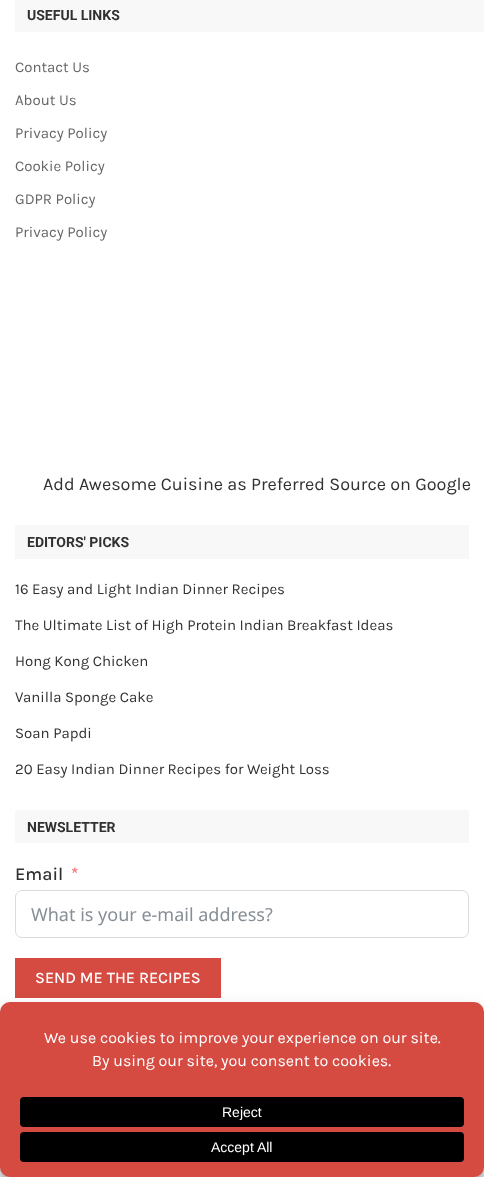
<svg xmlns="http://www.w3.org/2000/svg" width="484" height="1177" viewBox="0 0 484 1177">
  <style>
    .t1 { font: bold 14px Roboto; fill: #313131; }
    .t2 { font: 15px Karla; fill: #666; }
    .t3 { font: 18px Karla; fill: #313131; }
    .t4 { font: 15px Karla; fill: #313131; }
    .t5 { font: 500 18px Karla; fill: #313131; }
    .t6 { font: 500 18px Karla; fill: #f56c6c; }
    .t7 { font: 18px Noto Sans; fill: #868e96; }
    .t8 { font: 500 16px Karla; fill: #fff; }
    .t9 { font: 16px Karla; fill: #fff; }
    .t10 { font: 14px Liberation Sans; fill: #fff; }
  </style>
  <rect width="100%" height="100%" fill="#fff"/>
  <rect x="15" y="0" width="469" height="32" fill="#f8f8f8"/>
  <text x="27" y="20" class="t1">USEFUL LINKS</text>
  <text x="15" y="72" class="t2">Contact Us</text>
  <text x="15" y="105" class="t2">About Us</text>
  <text x="15" y="138" class="t2">Privacy Policy</text>
  <text x="15" y="171" class="t2">Cookie Policy</text>
  <text x="15" y="204" class="t2">GDPR Policy</text>
  <text x="15" y="237" class="t2">Privacy Policy</text>
  <text x="43" y="490" class="t3">Add Awesome Cuisine as Preferred Source on Google</text>
  <rect x="15" y="525" width="454" height="34" fill="#f8f8f8"/>
  <text x="27" y="547" class="t1">EDITORS' PICKS</text>
  <text x="15" y="594" class="t4">16 Easy and Light Indian Dinner Recipes</text>
  <text x="15" y="630" class="t4">The Ultimate List of High Protein Indian Breakfast Ideas</text>
  <text x="15" y="666" class="t4">Hong Kong Chicken</text>
  <text x="15" y="702" class="t4">Vanilla Sponge Cake</text>
  <text x="15" y="738" class="t4">Soan Papdi</text>
  <text x="15" y="774" class="t4">20 Easy Indian Dinner Recipes for Weight Loss</text>
  <rect x="15" y="810" width="454" height="33" fill="#f8f8f8"/>
  <text x="27" y="832" class="t1">NEWSLETTER</text>
  <text x="15" y="880" class="t5">Email</text>
  <text x="71" y="880" class="t6">*</text>
  <rect x="15.5" y="890.5" width="453" height="47" rx="6.5" fill="none" stroke="#dadbdd"/>
  <text x="31" y="921" class="t7">What is your e-mail address?</text>
  <rect x="15" y="958" width="206" height="40" fill="#d54b42"/>
  <text x="35" y="983" class="t8">SEND ME THE RECIPES</text>
  <rect x="0" y="1008" width="484" height="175" rx="10" fill="#0000003b" filter="blur(3px)"/>
  <rect x="0" y="1012" width="484" height="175" rx="10" fill="#00000030" filter="blur(10px)"/>
  <rect x="0" y="1002" width="484" height="175" rx="10" fill="#d54b42"/>
  <text x="44" y="1043" class="t9">We use cookies to improve your experience on our site.</text>
  <text x="92" y="1066" class="t9">By using our site, you consent to cookies.</text>
  <rect x="20" y="1097" width="444" height="30" rx="4" fill="#000"/>
  <text x="222" y="1117" class="t10">Reject</text>
  <rect x="20" y="1132" width="444" height="30" rx="4" fill="#000"/>
  <text x="211" y="1152" class="t10">Accept All</text>
</svg>
